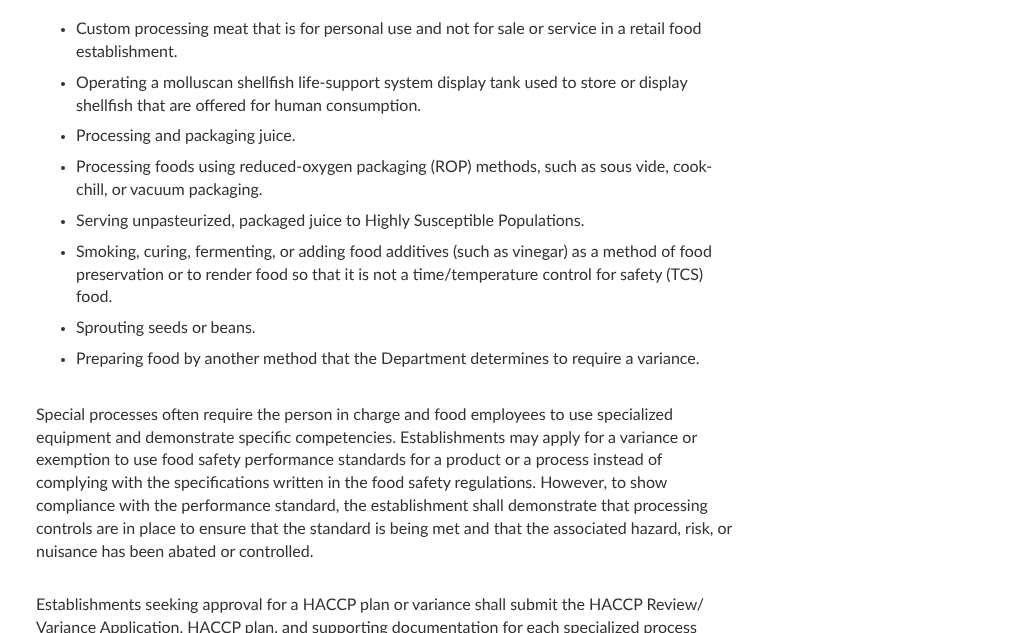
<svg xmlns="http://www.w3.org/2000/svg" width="1011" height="633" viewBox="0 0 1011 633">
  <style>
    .t1 { font: 16px Lato; fill: #333; }
  </style>
  <rect width="100%" height="100%" fill="#fff"/>
  <circle cx="63" cy="30" r="2" fill="#333"/>
  <text x="76" y="34" class="t1">Custom processing meat that is for personal use and not for sale or service in a retail food</text>
  <text x="76" y="57" class="t1">establishment.</text>
  <circle cx="63" cy="84" r="2" fill="#333"/>
  <text x="76" y="88" class="t1">Operating a molluscan shellfish life-support system display tank used to store or display</text>
  <text x="76" y="111" class="t1">shellfish that are offered for human consumption.</text>
  <circle cx="63" cy="137" r="2" fill="#333"/>
  <text x="76" y="141" class="t1">Processing and packaging juice.</text>
  <circle cx="63" cy="168" r="2" fill="#333"/>
  <text x="76" y="172" class="t1">Processing foods using reduced-oxygen packaging (ROP) methods, such as sous vide, cook-</text>
  <text x="76" y="195" class="t1">chill, or vacuum packaging.</text>
  <circle cx="63" cy="222" r="2" fill="#333"/>
  <text x="76" y="226" class="t1">Serving unpasteurized, packaged juice to Highly Susceptible Populations.</text>
  <circle cx="63" cy="253" r="2" fill="#333"/>
  <text x="76" y="257" class="t1">Smoking, curing, fermenting, or adding food additives (such as vinegar) as a method of food</text>
  <text x="76" y="280" class="t1">preservation or to render food so that it is not a time/temperature control for safety (TCS)</text>
  <text x="76" y="302" class="t1">food.</text>
  <circle cx="63" cy="329" r="2" fill="#333"/>
  <text x="76" y="333" class="t1">Sprouting seeds or beans.</text>
  <circle cx="63" cy="360" r="2" fill="#333"/>
  <text x="76" y="364" class="t1">Preparing food by another method that the Department determines to require a variance.</text>
  <text x="36" y="420" class="t1">Special processes often require the person in charge and food employees to use specialized</text>
  <text x="36" y="443" class="t1">equipment and demonstrate specific competencies. Establishments may apply for a variance or</text>
  <text x="36" y="465" class="t1">exemption to use food safety performance standards for a product or a process instead of</text>
  <text x="36" y="488" class="t1">complying with the specifications written in the food safety regulations. However, to show</text>
  <text x="36" y="511" class="t1">compliance with the performance standard, the establishment shall demonstrate that processing</text>
  <text x="36" y="534" class="t1">controls are in place to ensure that the standard is being met and that the associated hazard, risk, or</text>
  <text x="36" y="557" class="t1">nuisance has been abated or controlled.</text>
  <text x="36" y="610" class="t1">Establishments seeking approval for a HACCP plan or variance shall submit the HACCP Review/</text>
  <text x="36" y="633" class="t1">Variance Application, HACCP plan, and supporting documentation for each specialized process</text>
</svg>
